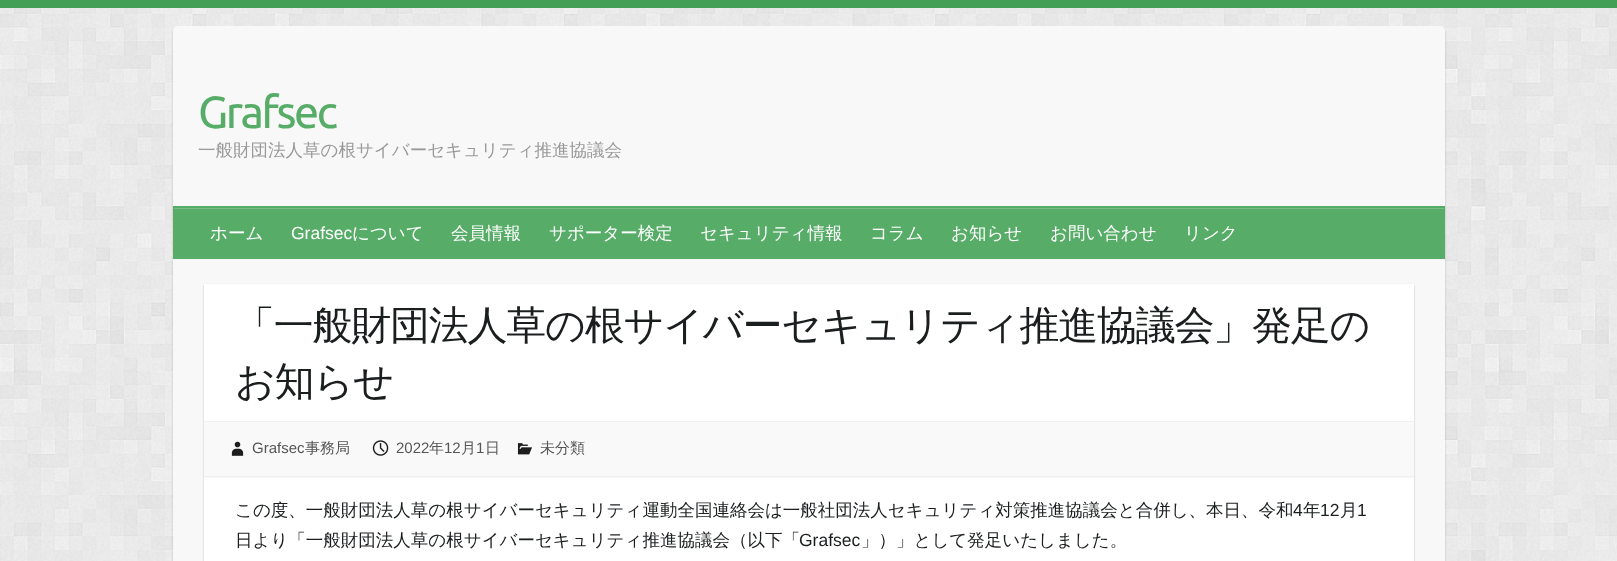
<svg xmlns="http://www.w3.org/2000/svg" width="1617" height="561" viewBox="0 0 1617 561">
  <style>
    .t1 { font: 45px Ubuntu; letter-spacing: -2.5px; fill: #57ad68; }
    .t2 { font: 500 17.5px WenQuanYi Zen Hei; fill: #999; }
    .t3 { font: 500 17.5px WenQuanYi Zen Hei; fill: #fff; }
    .t4 { font: 17.5px Liberation Sans; fill: #fff; }
    .t5 { font: 500 40px WenQuanYi Zen Hei; letter-spacing: -1.25px; fill: #1b1e1f; }
    .t6 { font: 15px Liberation Sans; fill: #555; }
    .t7 { font: 500 15px WenQuanYi Zen Hei; fill: #555; }
    .t8 { font: 500 17.5px WenQuanYi Zen Hei; fill: #1b1e1f; }
    .t9 { font: 17.5px Liberation Sans; fill: #1b1e1f; }
  </style>
  <rect width="100%" height="100%" fill="#fff"/>
  <image x="0" y="8" width="1617" height="553" href="images/1.png"/>
  <rect x="0" y="0" width="1617" height="8" fill="#439f55"/>
  <rect x="173" y="28" width="1272" height="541" rx="5" fill="#00000033" filter="blur(1px)"/>
  <rect x="173" y="26" width="1272" height="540" rx="5" fill="#f8f8f8"/>
  <text x="198" y="128" class="t1">Grafsec</text>
  <text x="198" y="156" class="t2">一般財団法人草の根サイバーセキュリティ推進協議会</text>
  <rect x="173" y="206" width="1272" height="53" fill="#57ad68"/>
  <rect x="174" y="208" width="1270" height="1" fill="#79bd86"/>
  <text x="210" y="239" class="t3">ホーム</text>
  <text x="291" y="239" class="t4">Grafsec</text>
  <text x="352" y="239" class="t3">について</text>
  <text x="451" y="239" class="t3">会員情報</text>
  <text x="549" y="239" class="t3">サポーター検定</text>
  <text x="700" y="239" class="t3">セキュリティ情報</text>
  <text x="870" y="239" class="t3">コラム</text>
  <text x="951" y="239" class="t3">お知らせ</text>
  <text x="1050" y="239" class="t3">お問い合わせ</text>
  <text x="1184" y="239" class="t3">リンク</text>
  <rect x="204" y="285" width="1210" height="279" fill="#00000033" filter="blur(1px)"/>
  <rect x="204" y="284" width="1210" height="277" fill="#fff"/>
  <text x="235" y="339" class="t5">「一般財団法人草の根サイバーセキュリティ推進協議会」発足の</text>
  <text x="235" y="395" class="t5">お知らせ</text>
  <rect x="204" y="422" width="1210" height="56" fill="#f9f9f9"/>
  <rect x="204" y="421" width="1210" height="1" fill="#f0f0f0"/>
  <rect x="204" y="476" width="1210" height="1" fill="#f0f0f0"/>
  <image x="231" y="441" width="13" height="15" href="images/2.png"/>
  <text x="252" y="453" class="t6">Grafsec</text>
  <text x="305" y="453" class="t7">事務局</text>
  <image x="372" y="440" width="17" height="16" href="images/3.png"/>
  <text x="396" y="453" class="t6">2022</text>
  <text x="429" y="453" class="t7">年</text>
  <text x="444" y="453" class="t6">12</text>
  <text x="461" y="453" class="t7">月</text>
  <text x="476" y="453" class="t6">1</text>
  <text x="485" y="453" class="t7">日</text>
  <image x="517" y="443" width="15" height="12" href="images/4.png"/>
  <text x="540" y="453" class="t7">未分類</text>
  <text x="235" y="516" class="t8">この度、一般財団法人草の根サイバーセキュリティ運動全国連絡会は一般社団法人セキュリティ対策推進協議会と合併し、本日、令和</text>
  <text x="1293" y="516" class="t9">4</text>
  <text x="1303" y="516" class="t8">年</text>
  <text x="1320" y="516" class="t9">12</text>
  <text x="1340" y="516" class="t8">月</text>
  <text x="1357" y="516" class="t9">1</text>
  <text x="235" y="546" class="t8">日より「一般財団法人草の根サイバーセキュリティ推進協議会（以下「</text>
  <text x="799" y="546" class="t9">Grafsec</text>
  <text x="861" y="546" class="t8">」）」として発足いたしました。</text>
</svg>
